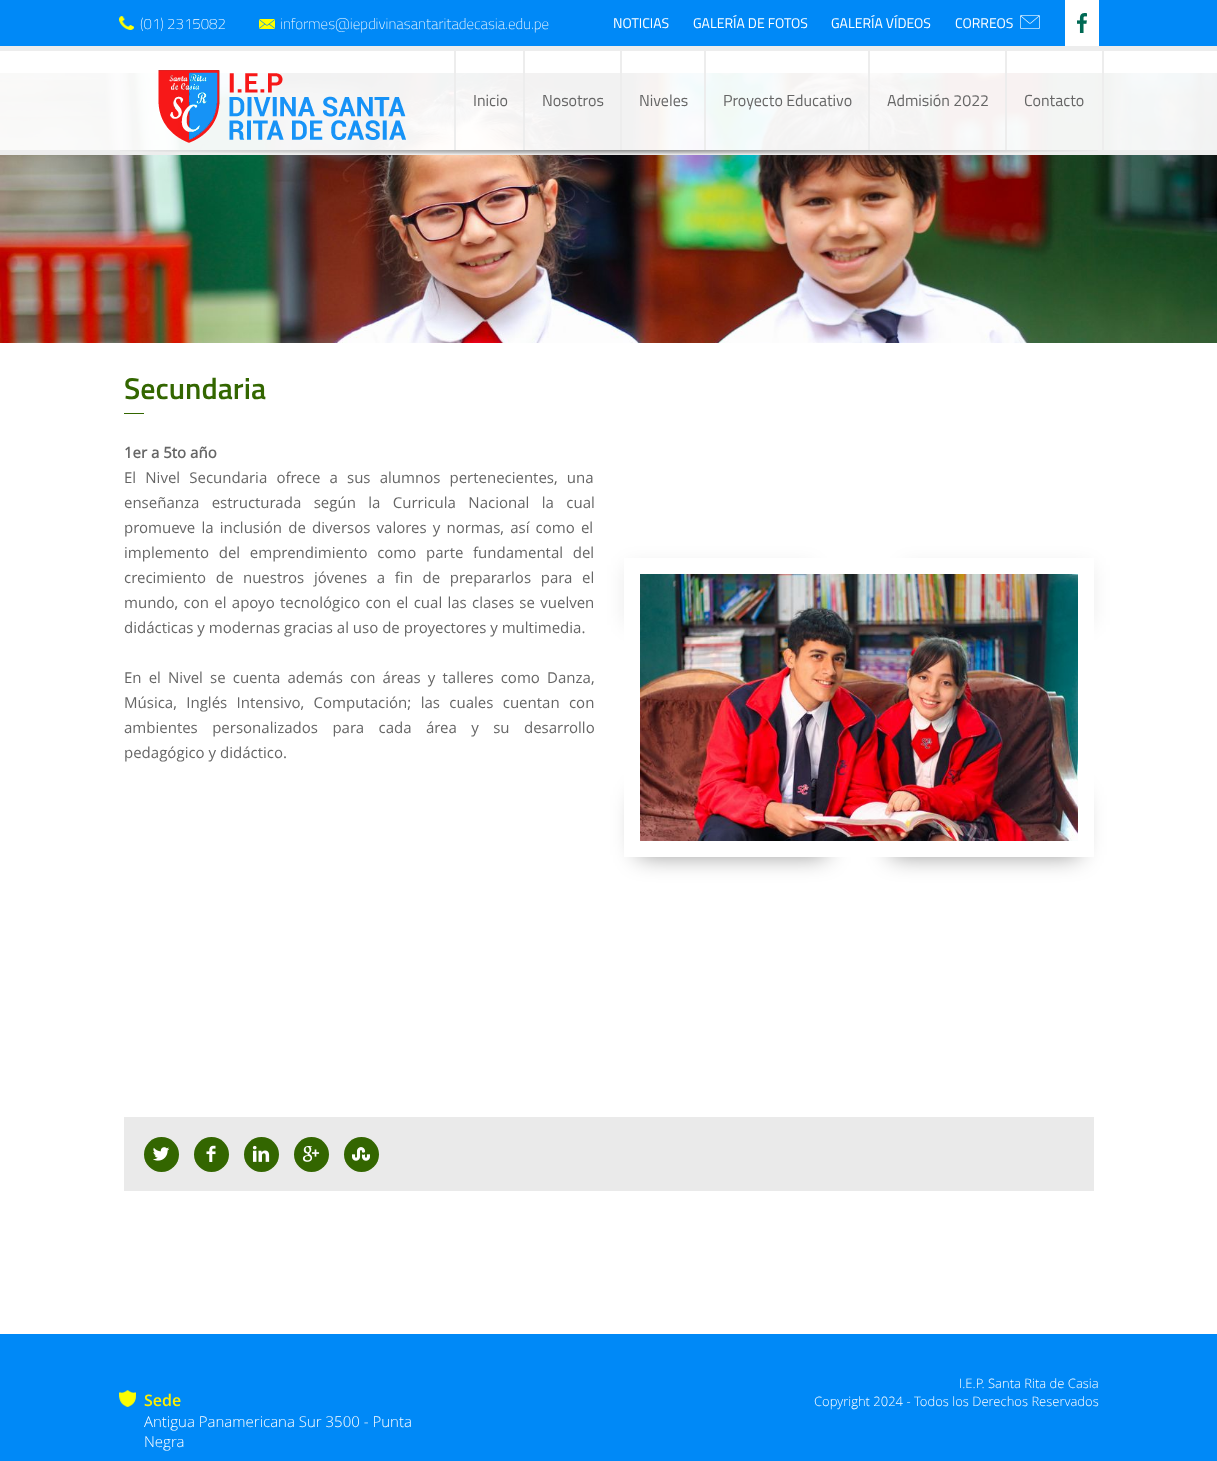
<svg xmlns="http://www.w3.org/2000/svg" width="1217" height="1461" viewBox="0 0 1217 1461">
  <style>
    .t1 { font: 100 15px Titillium; fill: #fff; }
    .t2 { font: 14px Titillium; fill: #fff; }
    .t3 { font: 16px Titillium; fill: #666; }
    .t4 { font: 600 30px Titillium; fill: #360; }
    .t5 { font: bold 15px Open Sans; fill: #666; }
    .t6 { font: 15px Open Sans; fill: #666; }
    .t7 { font: 600 16px Open Sans; fill: #feef00; }
    .t8 { font: 300 15px Open Sans; fill: #fff; }
    .t9 { font: 300 13px Open Sans; fill: #fff; }
  </style>
  <defs>
    <radialGradient id="g1" gradientUnits="userSpaceOnUse" cx="0" cy="0" r="1" gradientTransform="matrix(1033 0 0 10 609 150)"><stop offset="0" stop-color="#000" stop-opacity="0.4"/><stop offset="0.25" stop-color="#000" stop-opacity="0.2"/><stop offset="0.5" stop-color="#000" stop-opacity="0"/></radialGradient>
  </defs>
  <rect width="100%" height="100%" fill="#fff"/>
  <image x="0" y="73" width="1217" height="270" href="images/6.png"/>
  <rect x="0" y="73" width="1217" height="77" fill="#fffffff2"/>
  <rect x="0" y="150" width="1217" height="5" fill="#ededed"/>
  <rect x="0" y="0" width="1217" height="46" fill="#0089f7"/>
  <rect x="0" y="46" width="1217" height="5" fill="#ededed"/>
  <image x="119" y="16" width="15" height="14" href="images/1.png"/>
  <text x="140" y="29" class="t1">(01) 2315082</text>
  <image x="259" y="19" width="16" height="10" href="images/2.png"/>
  <text x="280" y="29" class="t1">informes@iepdivinasantaritadecasia.edu.pe</text>
  <text x="613" y="28" class="t2">NOTICIAS</text>
  <text x="693" y="28" class="t2">GALERÍA DE FOTOS</text>
  <text x="831" y="28" class="t2">GALERÍA VÍDEOS</text>
  <image x="1020" y="15" width="20" height="14" href="images/3.png"/>
  <text x="955" y="28" class="t2">CORREOS</text>
  <rect x="1065" y="0" width="34" height="46" fill="#fff"/>
  <image x="1077" y="13" width="10" height="20" href="images/4.png"/>
  <image x="158" y="70" width="248" height="73" href="images/5.png"/>
  <path d="M454 150V46L456 51V150Z" fill="#ededed"/>
  <text x="473" y="106" class="t3">Inicio</text>
  <path d="M523 150V46L525 51V150Z" fill="#ededed"/>
  <text x="542" y="106" class="t3">Nosotros</text>
  <path d="M620 150V46L622 51V150Z" fill="#ededed"/>
  <text x="639" y="106" class="t3">Niveles</text>
  <path d="M704 150V46L706 51V150Z" fill="#ededed"/>
  <text x="723" y="106" class="t3">Proyecto Educativo</text>
  <path d="M868 150V46L870 51V150Z" fill="#ededed"/>
  <text x="887" y="106" class="t3">Admisión 2022</text>
  <path d="M1104 46V150H1102V51Z" fill="#ededed"/>
  <path d="M1005 150V46L1007 51V150Z" fill="#ededed"/>
  <text x="1024" y="106" class="t3">Contacto</text>
  <rect x="120" y="150" width="978" height="5" fill="url(#g1)"/>
  <text x="124" y="399" class="t4">Secundaria</text>
  <rect x="124" y="413" width="20" height="1" fill="#360"/>
  <text x="124" y="458" class="t5">1er a 5to año</text>
  <text x="124" y="483" word-spacing="5.25" class="t6">El Nivel Secundaria ofrece a sus alumnos pertenecientes, una</text>
  <text x="124" y="508" word-spacing="8.5" class="t6">enseñanza estructurada según la Curricula Nacional la cual</text>
  <text x="124" y="533" word-spacing="2.25" class="t6">promueve la inclusión de diversos valores y normas, así como el</text>
  <text x="124" y="558" word-spacing="5.75" class="t6">implemento del emprendimiento como parte fundamental del</text>
  <text x="124" y="583" word-spacing="5.75" class="t6">crecimiento de nuestros jóvenes a fin de prepararlos para el</text>
  <text x="124" y="608" word-spacing="1.4" class="t6">mundo, con el apoyo tecnológico con el cual las clases se vuelven</text>
  <text x="124" y="633" class="t6">didácticas y modernas gracias al uso de proyectores y multimedia.</text>
  <text x="124" y="683" word-spacing="3.25" class="t6">En el Nivel se cuenta además con áreas y talleres como Danza,</text>
  <text x="124" y="708" word-spacing="5.5" class="t6">Música, Inglés Intensivo, Computación; las cuales cuentan con</text>
  <text x="124" y="733" word-spacing="10.5" class="t6">ambientes personalizados para cada área y su desarrollo</text>
  <text x="124" y="758" class="t6">pedagógico y didáctico.</text>
  <rect x="626" y="565" width="188" height="60" fill="#0000001a" filter="blur(10px)"/>
  <rect x="903" y="565" width="188" height="60" fill="#0000001a" filter="blur(10px)"/>
  <rect x="638" y="795" width="188" height="60" fill="#00000073" filter="blur(12.5px)"/>
  <rect x="891" y="795" width="188" height="60" fill="#00000073" filter="blur(12.5px)"/>
  <rect x="624" y="558" width="470" height="299" fill="#fff"/>
  <image x="640" y="574" width="438" height="267" href="images/7.png"/>
  <rect x="124" y="1117" width="970" height="74" fill="#eaeaea"/>
  <circle cx="161.5" cy="1154.5" r="17.5" fill="#360"/>
  <image x="153" y="1147" width="17" height="14" href="images/8.png"/>
  <circle cx="211.5" cy="1154.5" r="17.5" fill="#360"/>
  <image x="206" y="1145" width="10" height="17" href="images/9.png"/>
  <circle cx="261.5" cy="1154.5" r="17.5" fill="#360"/>
  <image x="252" y="1145" width="18" height="17" href="images/10.png"/>
  <circle cx="311.5" cy="1154.5" r="17.5" fill="#360"/>
  <image x="302" y="1146" width="18" height="16" href="images/11.png"/>
  <circle cx="361.5" cy="1154.5" r="17.5" fill="#360"/>
  <image x="352" y="1147" width="18" height="14" href="images/12.png"/>
  <rect x="0" y="1334" width="1217" height="127" fill="#0089f7"/>
  <image x="119" y="1390" width="17" height="17" href="images/13.png"/>
  <text x="144" y="1406" class="t7">Sede</text>
  <text x="144" y="1427" class="t8">Antigua Panamericana Sur 3500 - Punta</text>
  <text x="144" y="1447" class="t8">Negra</text>
  <text x="959" y="1388" class="t9">I.E.P. Santa Rita de Casia</text>
  <text x="814" y="1406" class="t9">Copyright 2024 - Todos los Derechos Reservados</text>
</svg>
